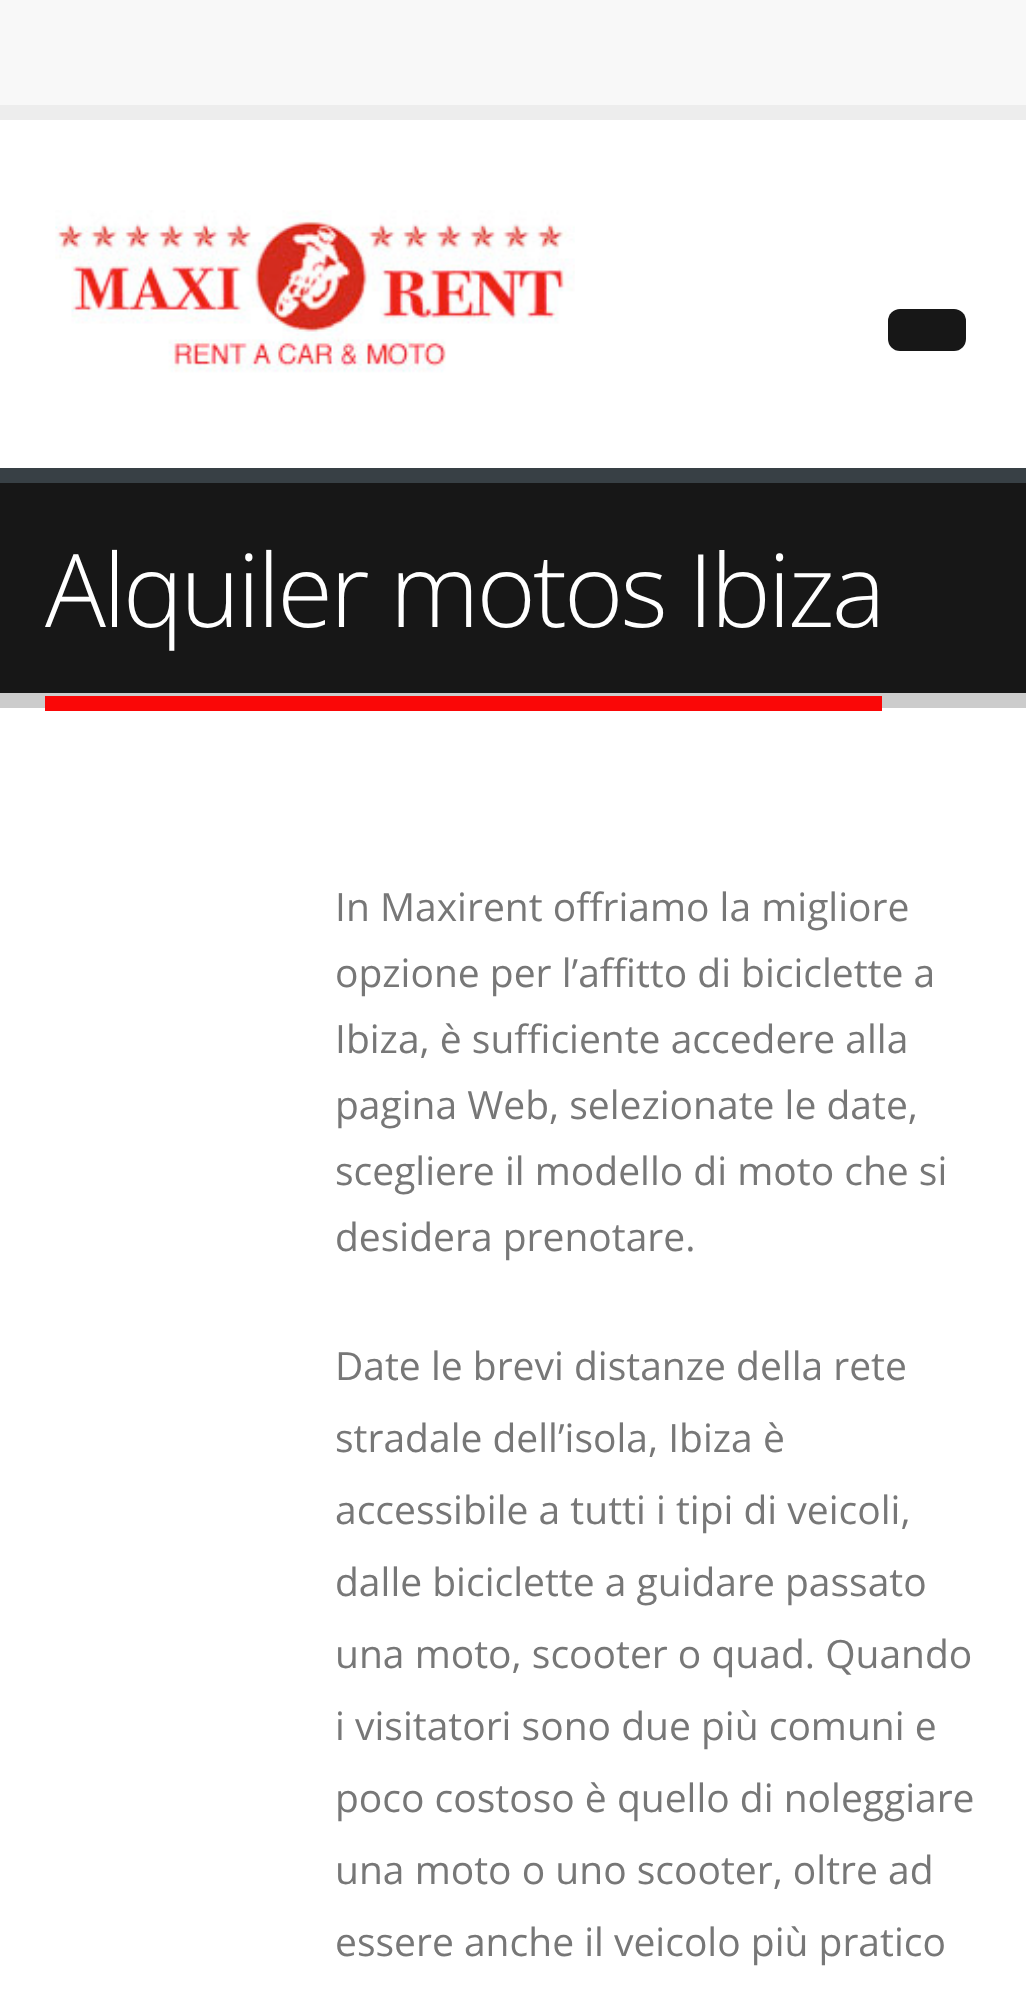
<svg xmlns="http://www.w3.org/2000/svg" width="1026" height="2000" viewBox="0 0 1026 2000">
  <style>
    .t1 { font: 300 101.5px Open Sans; letter-spacing: -3px; fill: #fff; }
    .t2 { font: 39px Open Sans; fill: #777; }
  </style>
  <rect width="100%" height="100%" fill="#fff"/>
  <rect x="0" y="0" width="1026" height="105" fill="#f8f8f8"/>
  <rect x="0" y="105" width="1026" height="15" fill="#ededed"/>
  <image x="55" y="210" width="520" height="163" href="images/1.png"/>
  <rect x="888" y="309" width="78" height="42" rx="12" fill="#171717"/>
  <rect x="0" y="483" width="1026" height="210" fill="#171717"/>
  <rect x="0" y="468" width="1026" height="15" fill="#384045"/>
  <rect x="0" y="693" width="1026" height="15" fill="#ccc"/>
  <rect x="45" y="696" width="837" height="15" fill="#fa0707"/>
  <text x="45" y="627" class="t1">Alquiler motos Ibiza</text>
  <text x="335" y="921" class="t2">In Maxirent offriamo la migliore</text>
  <text x="335" y="987" class="t2">opzione per l’affitto di biciclette a</text>
  <text x="335" y="1053" class="t2">Ibiza, è sufficiente accedere alla</text>
  <text x="335" y="1119" class="t2">pagina Web, selezionate le date,</text>
  <text x="335" y="1185" class="t2">scegliere il modello di moto che si</text>
  <text x="335" y="1251" class="t2">desidera prenotare.</text>
  <text x="335" y="1380" class="t2">Date le brevi distanze della rete</text>
  <text x="335" y="1452" class="t2">stradale dell’isola, Ibiza è</text>
  <text x="335" y="1524" class="t2">accessibile a tutti i tipi di veicoli,</text>
  <text x="335" y="1596" class="t2">dalle biciclette a guidare passato</text>
  <text x="335" y="1668" class="t2">una moto, scooter o quad. Quando</text>
  <text x="335" y="1740" class="t2">i visitatori sono due più comuni e</text>
  <text x="335" y="1812" class="t2">poco costoso è quello di noleggiare</text>
  <text x="335" y="1884" class="t2">una moto o uno scooter, oltre ad</text>
  <text x="335" y="1956" class="t2">essere anche il veicolo più pratico</text>
</svg>
